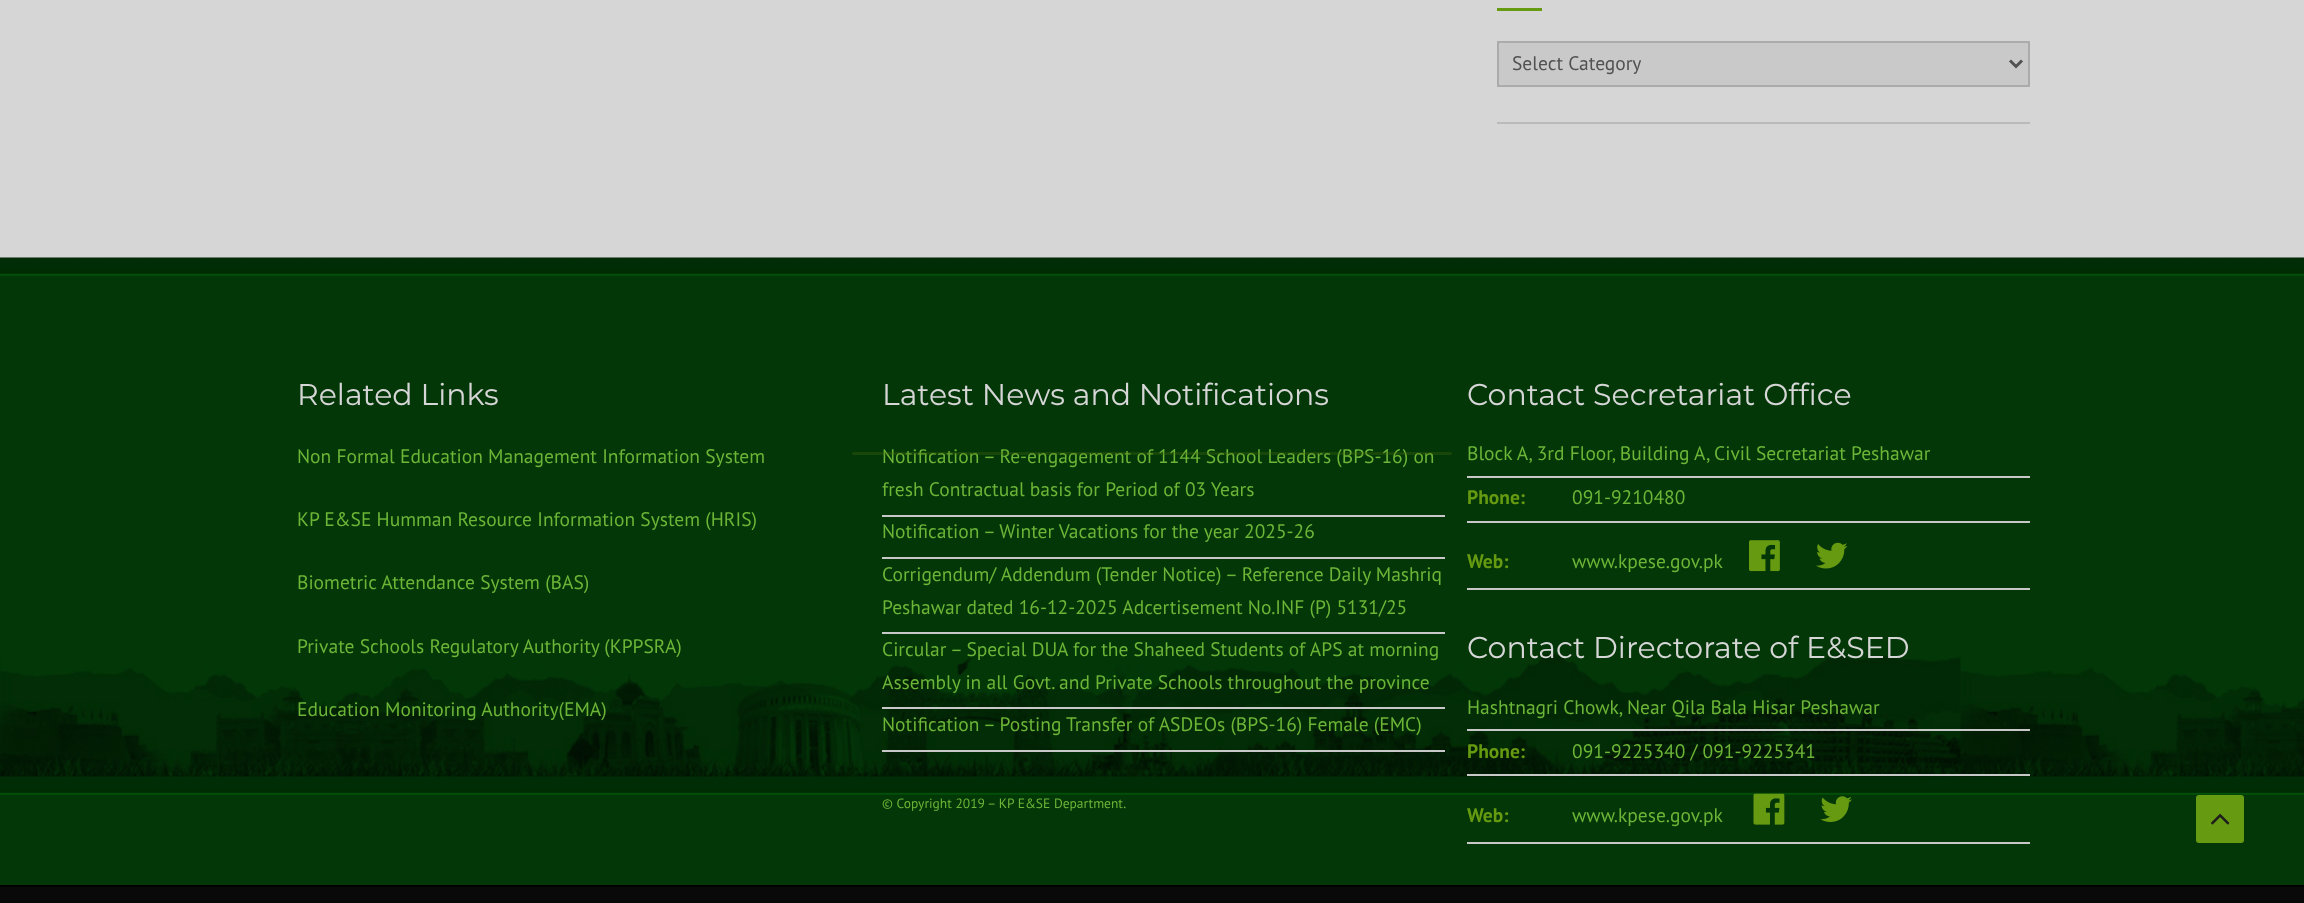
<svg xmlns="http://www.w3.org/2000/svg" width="2304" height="903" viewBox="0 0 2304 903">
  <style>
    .t1 { font: 19.5px PT Sans; fill: #515151; }
    .t2 { font: 30px Montserrat; fill: #d6d6d6; }
    .t3 { font: 19.5px PT Sans; fill: #6cb537; }
    .t4 { font: 13.5px PT Sans; fill: #6cb537; }
    .t5 { font: bold 19.5px PT Sans; fill: #669b11; }
  </style>
  <rect width="100%" height="100%" fill="#d6d6d6"/>
  <rect x="1497" y="122" width="533" height="2" fill="#bababa"/>
  <rect x="1497" y="8" width="45" height="3" fill="#669b11"/>
  <rect x="1498" y="42" width="531" height="44" fill="#c9c9c9" stroke="#ababab" stroke-width="2"/>
  <path d="M2010 60.5L2016 66.5L2022 60.5" fill="none" stroke="#515151" stroke-width="3"/>
  <text x="1512" y="70" class="t1">Select Category</text>
  <image x="0" y="257" width="2304" height="628" href="images/1.png"/>
  <text x="297" y="405" class="t2">Related Links</text>
  <text x="297" y="463" class="t3">Non Formal Education Management Information System</text>
  <text x="297" y="526" class="t3">KP E&amp;SE Humman Resource Information System (HRIS)</text>
  <text x="297" y="589" class="t3">Biometric Attendance System (BAS)</text>
  <text x="297" y="653" class="t3">Private Schools Regulatory Authority (KPPSRA)</text>
  <text x="297" y="716" class="t3">Education Monitoring Authority(EMA)</text>
  <text x="882" y="405" class="t2">Latest News and Notifications</text>
  <rect x="882" y="515" width="563" height="2" fill="#c8c8c8"/>
  <text x="882" y="463" class="t3">Notification – Re-engagement of 1144 School Leaders (BPS-16) on</text>
  <text x="882" y="496" class="t3">fresh Contractual basis for Period of 03 Years</text>
  <rect x="882" y="557" width="563" height="2" fill="#c8c8c8"/>
  <text x="882" y="538" class="t3">Notification – Winter Vacations for the year 2025-26</text>
  <rect x="882" y="632" width="563" height="2" fill="#c8c8c8"/>
  <text x="882" y="581" class="t3">Corrigendum/ Addendum (Tender Notice) – Reference Daily Mashriq</text>
  <text x="882" y="614" class="t3">Peshawar dated 16-12-2025 Adcertisement No.INF (P) 5131/25</text>
  <rect x="882" y="707" width="563" height="2" fill="#c8c8c8"/>
  <text x="882" y="656" class="t3">Circular – Special DUA for the Shaheed Students of APS at morning</text>
  <text x="882" y="689" class="t3">Assembly in all Govt. and Private Schools throughout the province</text>
  <rect x="882" y="750" width="563" height="2" fill="#c8c8c8"/>
  <text x="882" y="731" class="t3">Notification – Posting Transfer of ASDEOs (BPS-16) Female (EMC)</text>
  <text x="882" y="808" class="t4">© Copyright 2019 – KP E&amp;SE Department.</text>
  <text x="1467" y="405" class="t2">Contact Secretariat Office</text>
  <rect x="1467" y="476" width="563" height="2" fill="#c8c8c8"/>
  <text x="1467" y="460" class="t3">Block A, 3rd Floor, Building A, Civil Secretariat Peshawar</text>
  <rect x="1467" y="521" width="563" height="2" fill="#c8c8c8"/>
  <text x="1467" y="504" class="t5">Phone:</text>
  <text x="1572" y="504" class="t3">091-9210480</text>
  <rect x="1467" y="588" width="563" height="2" fill="#c8c8c8"/>
  <text x="1467" y="568" class="t5">Web:</text>
  <text x="1572" y="568" class="t3">www.kpese.gov.pk</text>
  <image x="1749" y="540" width="31" height="32" href="images/2.png"/>
  <image x="1816" y="542" width="32" height="27" href="images/3.png"/>
  <text x="1467" y="658" class="t2">Contact Directorate of E&amp;SED</text>
  <rect x="1467" y="729" width="563" height="2" fill="#c8c8c8"/>
  <text x="1467" y="714" class="t3">Hashtnagri Chowk, Near Qila Bala Hisar Peshawar</text>
  <rect x="1467" y="774" width="563" height="2" fill="#c8c8c8"/>
  <text x="1467" y="758" class="t5">Phone:</text>
  <text x="1572" y="758" class="t3">091-9225340 / 091-9225341</text>
  <rect x="1467" y="842" width="563" height="2" fill="#c8c8c8"/>
  <text x="1467" y="822" class="t5">Web:</text>
  <text x="1572" y="822" class="t3">www.kpese.gov.pk</text>
  <image x="1753" y="793" width="32" height="32" href="images/4.png"/>
  <image x="1820" y="796" width="32" height="26" href="images/5.png"/>
  <rect x="2196" y="795" width="48" height="48" rx="3" fill="#669b11"/>
  <image x="2211" y="813" width="19" height="12" href="images/6.png"/>
  <rect x="0" y="887" width="2304" height="16" fill="#090909"/>
  <rect x="0" y="885" width="2304" height="2" fill="#000"/>
  <rect x="852" y="452" width="600" height="3" rx="1.5" fill="#11111129"/>
  <rect x="852" y="452" width="600" height="3" rx="1.5" fill="#7ab91429"/>
</svg>
